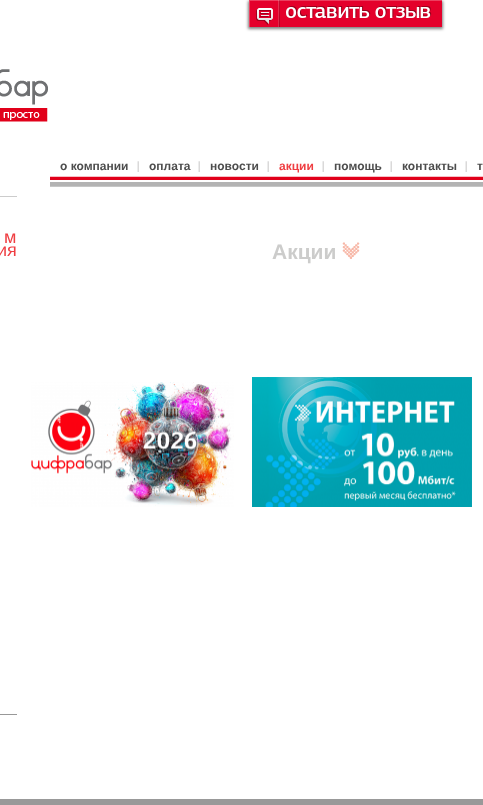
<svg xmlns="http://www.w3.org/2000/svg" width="483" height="805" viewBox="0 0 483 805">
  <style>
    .t1 { font: bold 12px Liberation Sans; fill: #4d4d4d; }
    .t2 { font: bold 12px Liberation Sans; fill: #ef3e42; }
    .t3 { font: 18px Liberation Sans; fill: #ef3e42; }
    .t4 { font: bold 21px Liberation Sans; fill: #cccccb; }
  </style>
  <defs>
    <clipPath id="clip1"><rect x="249" y="0" width="193" height="27"/></clipPath>
  </defs>
  <rect width="100%" height="100%" fill="#fff"/>
  <rect x="248" y="1" width="195" height="28" fill="#00000080" filter="blur(1.5px)"/>
  <rect x="250" y="1" width="192" height="26" fill="#e4002b"/>
  <g clip-path="url(#clip1)">
    <path d="M150-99H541V126H150ZM250 1H443V28H250Z" fill="#eb3f5f" fill-rule="evenodd"/>
  </g>
  <image x="256" y="0" width="176" height="27" href="images/1.png"/>
  <image x="0" y="69" width="48" height="53" href="images/2.png"/>
  <image x="50" y="176" width="433" height="11" href="images/3.png"/>
  <image x="137" y="161" width="2" height="11" href="images/4.png"/>
  <text x="60" y="170" class="t1">о компании</text>
  <image x="198" y="161" width="2" height="11" href="images/4.png"/>
  <text x="149" y="170" class="t1">оплата</text>
  <image x="267" y="161" width="2" height="11" href="images/4.png"/>
  <text x="210" y="170" class="t1">новости</text>
  <image x="322" y="161" width="2" height="11" href="images/4.png"/>
  <text x="279" y="170" class="t2">акции</text>
  <image x="390" y="161" width="2" height="11" href="images/4.png"/>
  <text x="334" y="170" class="t1">помощь</text>
  <image x="465" y="161" width="2" height="11" href="images/4.png"/>
  <text x="402" y="170" class="t1">контакты</text>
  <text x="477" y="170" class="t1">т</text>
  <rect x="0" y="196" width="17" height="1" fill="#ccc"/>
  <text x="4" y="243" class="t3">м</text>
  <text x="-3" y="256" class="t3">ия</text>
  <text x="272" y="259" class="t4">Акции</text>
  <image x="342" y="242" width="18" height="17" href="images/5.png"/>
  <image x="31" y="382" width="203" height="125" href="images/6.png"/>
  <image x="252" y="377" width="220" height="130" href="images/7.png"/>
  <rect x="0" y="714" width="17" height="1" fill="#989898"/>
  <rect x="0" y="799" width="483" height="6" fill="#999"/>
</svg>
